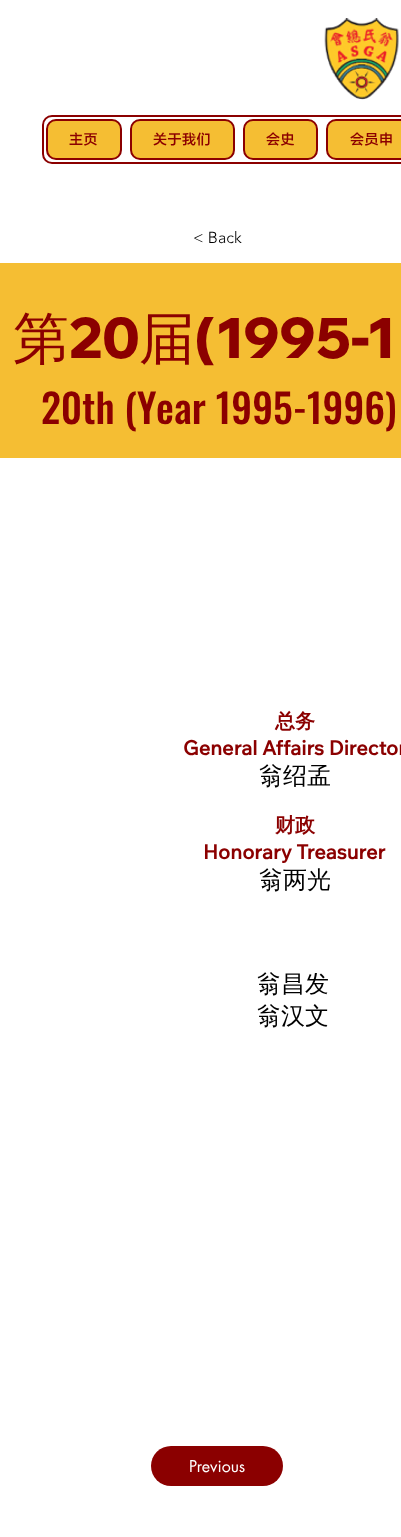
<svg xmlns="http://www.w3.org/2000/svg" width="401" height="1537" viewBox="0 0 401 1537">
  <style>
    .t1 { font: 14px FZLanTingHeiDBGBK; letter-spacing: 0.5px; fill: #8b0000; }
    .t2 { font: 300 16px 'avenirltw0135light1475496'; fill: #000; }
    .t3 { font: 500 56px WenQuanYi Zen Hei; fill: #8b0000; }
    .t4 { font: 800 56px Wix Madefor Display; fill: #8b0000; }
    .t5 { font: 500 40px Oswald; fill: #8b0000; }
    .t6 { font: bold 20px WenQuanYi Zen Hei; fill: #8b0000; }
    .t7 { font: bold 20px Wix Madefor Text; fill: #8b0000; }
    .t8 { font: 500 24px WenQuanYi Zen Hei; fill: #000; }
    .t9 { font: 16px futura; fill: #fff; }
  </style>
  <rect width="100%" height="100%" fill="#fff"/>
  <image x="324" y="18" width="75" height="82" href="images/1.png"/>
  <rect x="43" y="116" width="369" height="47" rx="9" fill="none" stroke="#8b0000" stroke-width="2"/>
  <rect x="47" y="120" width="74" height="39" rx="9" fill="#f5be33" stroke="#8b0000" stroke-width="2"/>
  <text x="69" y="144" class="t1">主页</text>
  <rect x="131" y="120" width="103" height="39" rx="9" fill="#f5be33" stroke="#8b0000" stroke-width="2"/>
  <text x="153" y="144" class="t1">关于我们</text>
  <rect x="244" y="120" width="73" height="39" rx="9" fill="#f5be33" stroke="#8b0000" stroke-width="2"/>
  <text x="266" y="144" class="t1">会史</text>
  <rect x="327" y="120" width="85" height="39" rx="9" fill="#f5be33" stroke="#8b0000" stroke-width="2"/>
  <text x="350" y="144" class="t1">会员申</text>
  <text x="193" y="243" class="t2">&lt; Back</text>
  <rect x="0" y="263" width="401" height="195" fill="#f5be33"/>
  <text x="13" y="358" class="t3">第</text>
  <text x="69" y="358" class="t4">20</text>
  <text x="139" y="358" class="t3">届</text>
  <text x="195" y="358" class="t4">(1995-1</text>
  <text x="41" y="424" class="t5">20th (Year 1995-1996)</text>
  <text x="275" y="728" class="t6">总务</text>
  <text x="183" y="755" class="t7">General Affairs Director</text>
  <text x="259" y="784" class="t8">翁绍孟</text>
  <text x="275" y="832" class="t6">财政</text>
  <text x="203" y="859" class="t7">Honorary Treasurer</text>
  <text x="259" y="888" class="t8">翁两光</text>
  <text x="257" y="992" class="t8">翁昌发</text>
  <text x="257" y="1024" class="t8">翁汉文</text>
  <rect x="151" y="1446" width="132" height="40" rx="20" fill="#8b0000"/>
  <text x="189" y="1472" class="t9">Previous</text>
</svg>
